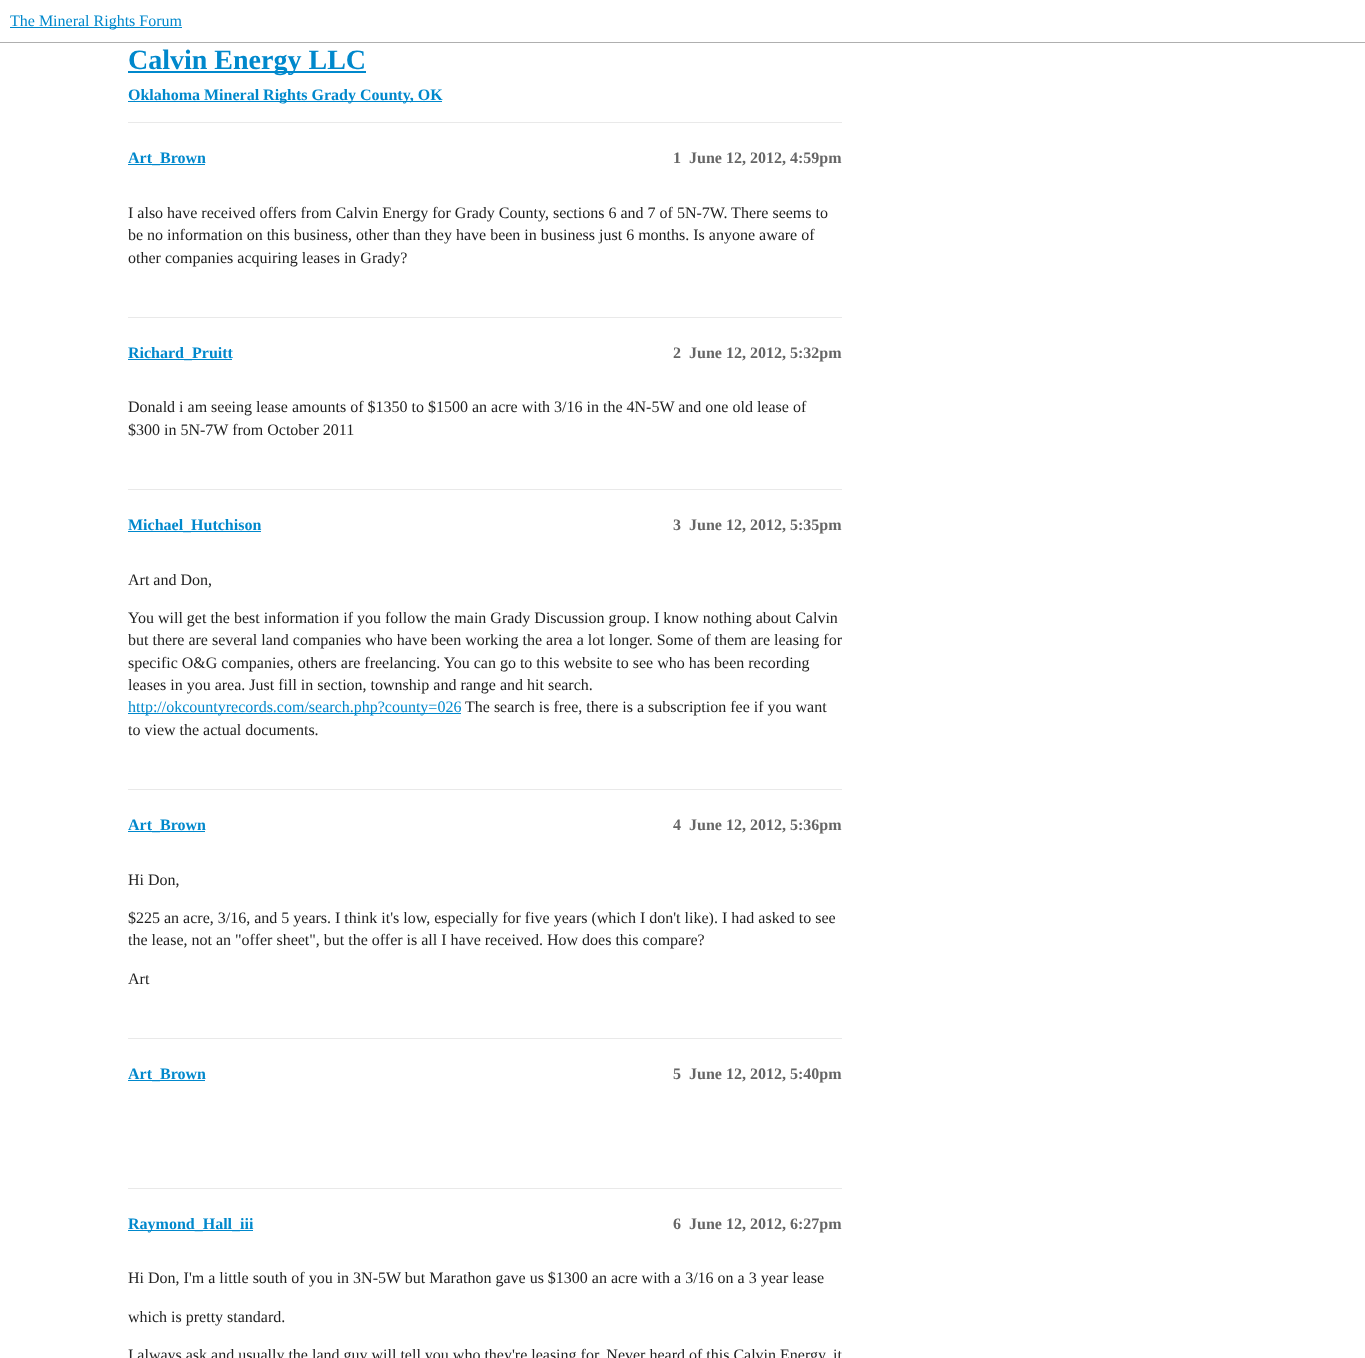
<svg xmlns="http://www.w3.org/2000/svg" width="1365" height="1358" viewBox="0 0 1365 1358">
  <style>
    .t1 { font: 16px Liberation Serif; fill: #08c; }
    .t2 { font: bold 28px Liberation Serif; fill: #08c; }
    .t3 { font: bold 16px Liberation Serif; fill: #08c; }
    .t4 { font: bold 16px Liberation Serif; fill: #666; }
    .t5 { font: 16px Liberation Serif; fill: #222; }
  </style>
  <rect width="100%" height="100%" fill="#fff"/>
  <rect x="0" y="42" width="1365" height="1" fill="#afafaf"/>
  <rect x="10" y="27" width="172" height="1" fill="#08c"/>
  <text x="10" y="26" class="t1">The Mineral Rights Forum</text>
  <rect x="128" y="71" width="238" height="2" fill="#08c"/>
  <text x="128" y="69" class="t2">Calvin Energy LLC</text>
  <rect x="128" y="101" width="314" height="1" fill="#08c"/>
  <text x="128" y="100" class="t3">Oklahoma Mineral Rights Grady County, OK</text>
  <rect x="128" y="122" width="714" height="1" fill="#e9e9e9"/>
  <rect x="128" y="164" width="77" height="1" fill="#08c"/>
  <text x="128" y="163" class="t3">Art_Brown</text>
  <text x="673" y="163" class="t4">1</text>
  <text x="689" y="163" class="t4">June 12, 2012, 4:59pm</text>
  <text x="128" y="218" class="t5">I also have received offers from Calvin Energy for Grady County, sections 6 and 7 of 5N-7W. There seems to</text>
  <text x="128" y="240" class="t5">be no information on this business, other than they have been in business just 6 months. Is anyone aware of</text>
  <text x="128" y="263" class="t5">other companies acquiring leases in Grady?</text>
  <rect x="128" y="317" width="714" height="1" fill="#e9e9e9"/>
  <rect x="128" y="359" width="104" height="1" fill="#08c"/>
  <text x="128" y="358" class="t3">Richard_Pruitt</text>
  <text x="673" y="358" class="t4">2</text>
  <text x="689" y="358" class="t4">June 12, 2012, 5:32pm</text>
  <text x="128" y="412" class="t5">Donald i am seeing lease amounts of $1350 to $1500 an acre with 3/16 in the 4N-5W and one old lease of</text>
  <text x="128" y="435" class="t5">$300 in 5N-7W from October 2011</text>
  <rect x="128" y="489" width="714" height="1" fill="#e9e9e9"/>
  <rect x="128" y="531" width="133" height="1" fill="#08c"/>
  <text x="128" y="530" class="t3">Michael_Hutchison</text>
  <text x="673" y="530" class="t4">3</text>
  <text x="689" y="530" class="t4">June 12, 2012, 5:35pm</text>
  <text x="128" y="585" class="t5">Art and Don,</text>
  <text x="128" y="623" class="t5">You will get the best information if you follow the main Grady Discussion group. I know nothing about Calvin</text>
  <text x="128" y="645" class="t5">but there are several land companies who have been working the area a lot longer. Some of them are leasing for</text>
  <text x="128" y="668" class="t5">specific O&amp;G companies, others are freelancing. You can go to this website to see who has been recording</text>
  <text x="128" y="690" class="t5">leases in you area. Just fill in section, township and range and hit search.</text>
  <rect x="128" y="713" width="333" height="1" fill="#08c"/>
  <text x="128" y="712" class="t1">http://okcountyrecords.com/search.php?county=026</text>
  <text x="465" y="712" class="t5">The search is free, there is a subscription fee if you want</text>
  <text x="128" y="735" class="t5">to view the actual documents.</text>
  <rect x="128" y="789" width="714" height="1" fill="#e9e9e9"/>
  <rect x="128" y="831" width="77" height="1" fill="#08c"/>
  <text x="128" y="830" class="t3">Art_Brown</text>
  <text x="673" y="830" class="t4">4</text>
  <text x="689" y="830" class="t4">June 12, 2012, 5:36pm</text>
  <text x="128" y="885" class="t5">Hi Don,</text>
  <text x="128" y="923" class="t5">$225 an acre, 3/16, and 5 years. I think it's low, especially for five years (which I don't like). I had asked to see</text>
  <text x="128" y="945" class="t5">the lease, not an "offer sheet", but the offer is all I have received. How does this compare?</text>
  <text x="128" y="984" class="t5">Art</text>
  <rect x="128" y="1038" width="714" height="1" fill="#e9e9e9"/>
  <rect x="128" y="1080" width="77" height="1" fill="#08c"/>
  <text x="128" y="1079" class="t3">Art_Brown</text>
  <text x="673" y="1079" class="t4">5</text>
  <text x="689" y="1079" class="t4">June 12, 2012, 5:40pm</text>
  <rect x="128" y="1188" width="714" height="1" fill="#e9e9e9"/>
  <rect x="128" y="1230" width="125" height="1" fill="#08c"/>
  <text x="128" y="1229" class="t3">Raymond_Hall_iii</text>
  <text x="673" y="1229" class="t4">6</text>
  <text x="689" y="1229" class="t4">June 12, 2012, 6:27pm</text>
  <text x="128" y="1283" class="t5">Hi Don, I'm a little south of you in 3N-5W but Marathon gave us $1300 an acre with a 3/16 on a 3 year lease</text>
  <text x="128" y="1322" class="t5">which is pretty standard.</text>
  <text x="128" y="1360" class="t5">I always ask and usually the land guy will tell you who they're leasing for. Never heard of this Calvin Energy, it</text>
</svg>
